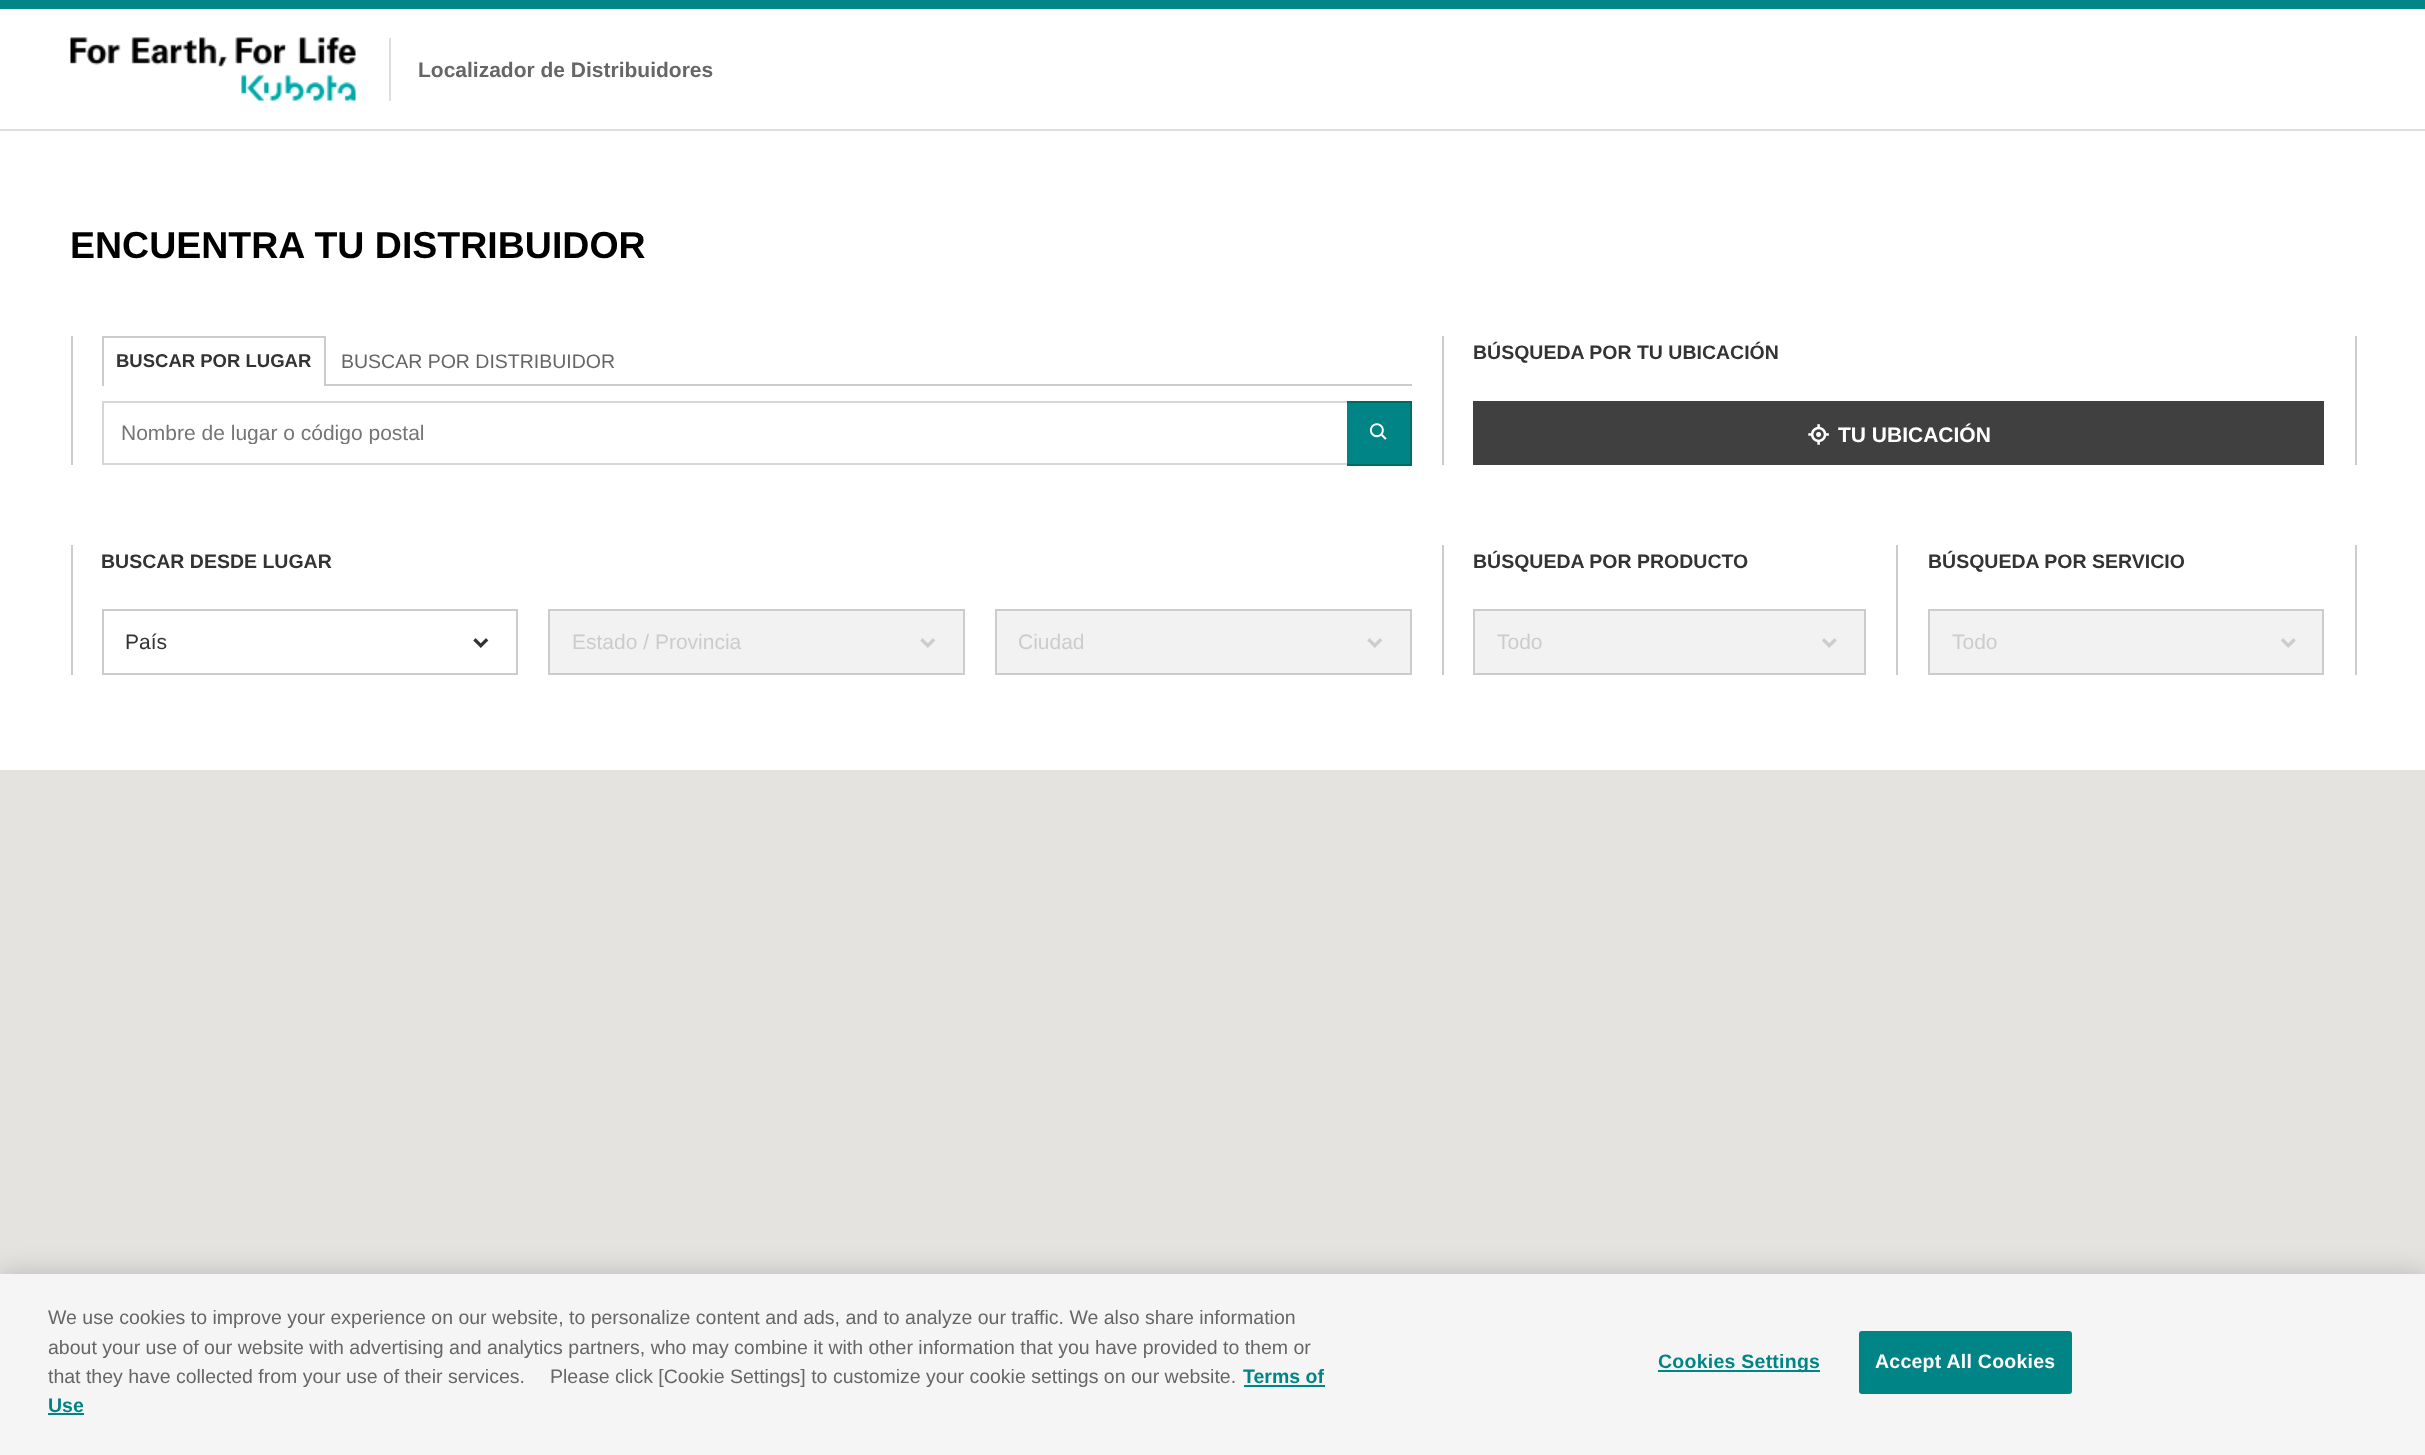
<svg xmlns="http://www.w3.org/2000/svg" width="2425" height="1455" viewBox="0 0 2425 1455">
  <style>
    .t1 { font: bold 21px Liberation Sans; fill: #666; }
    .t2 { font: bold 37.5px Liberation Sans; fill: #000; }
    .t3 { font: bold 18.5px Liberation Sans; fill: #333; }
    .t4 { font: 19.5px Liberation Sans; fill: #666; }
    .t5 { font: 21px Liberation Sans; fill: #757575; }
    .t6 { font: bold 19.5px Liberation Sans; fill: #333; }
    .t7 { font: bold 21px Liberation Sans; fill: #fff; }
    .t8 { font: 21px Liberation Sans; fill: #333; }
    .t9 { font: 21px Liberation Sans; fill: #ccc; }
    .t10 { font: bold 19.5px Liberation Sans; fill: #008486; }
    .t11 { font: bold 19.5px Liberation Sans; letter-spacing: 0.25px; fill: #008486; }
    .t12 { font: bold 19.5px Liberation Sans; letter-spacing: 0.25px; fill: #fff; }
  </style>
  <defs>
    <clipPath id="clip1"><rect x="122" y="420" width="1195" height="24"/></clipPath>
  </defs>
  <rect width="100%" height="100%" fill="#fff"/>
  <rect x="0" y="129" width="2425" height="2" fill="#dedede"/>
  <rect x="0" y="0" width="2425" height="9" fill="#008486"/>
  <rect x="389" y="38" width="2" height="63" fill="#dedede"/>
  <image x="70" y="37" width="286" height="64" href="images/1.png"/>
  <text x="418" y="77" class="t1">Localizador de Distribuidores</text>
  <text x="70" y="258" class="t2">ENCUENTRA TU DISTRIBUIDOR</text>
  <rect x="2355" y="336" width="2" height="129" fill="#ccc"/>
  <rect x="71" y="336" width="2" height="129" fill="#ccc"/>
  <rect x="326" y="384" width="1086" height="2" fill="#ccc"/>
  <rect x="102" y="336" width="224" height="2" fill="#ccc"/>
  <rect x="324" y="336" width="2" height="50" fill="#ccc"/>
  <rect x="102" y="336" width="2" height="50" fill="#ccc"/>
  <text x="116" y="367" class="t3">BUSCAR POR LUGAR</text>
  <text x="341" y="368" class="t4">BUSCAR POR DISTRIBUIDOR</text>
  <rect x="103" y="402" width="1308" height="62" fill="none" stroke="#d6d6d6" stroke-width="2"/>
  <g clip-path="url(#clip1)">
    <text x="121" y="440" class="t5">Nombre de lugar o código postal</text>
  </g>
  <rect x="1347" y="403" width="63" height="61" fill="#008486"/>
  <rect x="1347" y="401" width="65" height="2" fill="#006a6b"/>
  <rect x="1410" y="401" width="2" height="64" fill="#006a6b"/>
  <rect x="1347" y="464" width="65" height="2" fill="#006a6b"/>
  <image x="1369" y="423" width="18" height="17" href="images/2.png"/>
  <rect x="1442" y="336" width="2" height="129" fill="#ccc"/>
  <text x="1473" y="359" class="t6">BÚSQUEDA POR TU UBICACIÓN</text>
  <rect x="1473" y="401" width="851" height="64" fill="#404040"/>
  <image x="1808" y="424" width="21" height="21" href="images/3.png"/>
  <text x="1838" y="442" class="t7">TU UBICACIÓN</text>
  <rect x="2355" y="545" width="2" height="130" fill="#ccc"/>
  <rect x="71" y="545" width="2" height="130" fill="#ccc"/>
  <text x="101" y="568" class="t6">BUSCAR DESDE LUGAR</text>
  <rect x="103" y="610" width="414" height="64" fill="none" stroke="#ccc" stroke-width="2"/>
  <text x="125" y="649" class="t8">País</text>
  <image x="473" y="638" width="16" height="10" href="images/4.png"/>
  <rect x="549" y="610" width="415" height="64" fill="#f2f2f2" stroke="#ccc" stroke-width="2"/>
  <text x="572" y="649" class="t9">Estado / Provincia</text>
  <image x="920" y="638" width="16" height="10" href="images/5.png"/>
  <rect x="996" y="610" width="415" height="64" fill="#f2f2f2" stroke="#ccc" stroke-width="2"/>
  <text x="1018" y="649" class="t9">Ciudad</text>
  <image x="1367" y="638" width="16" height="10" href="images/5.png"/>
  <rect x="1896" y="545" width="2" height="130" fill="#ccc"/>
  <rect x="1442" y="545" width="2" height="130" fill="#ccc"/>
  <text x="1473" y="568" class="t6">BÚSQUEDA POR PRODUCTO</text>
  <rect x="1474" y="610" width="391" height="64" fill="#f2f2f2" stroke="#ccc" stroke-width="2"/>
  <text x="1497" y="649" class="t9">Todo</text>
  <image x="1822" y="638" width="15" height="10" href="images/6.png"/>
  <text x="1928" y="568" class="t6">BÚSQUEDA POR SERVICIO</text>
  <rect x="1929" y="610" width="394" height="64" fill="#f2f2f2" stroke="#ccc" stroke-width="2"/>
  <text x="1952" y="649" class="t9">Todo</text>
  <image x="2281" y="638" width="15" height="10" href="images/6.png"/>
  <rect x="0" y="770" width="2425" height="504" fill="#e5e3df"/>
  <rect x="0" y="1274" width="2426" height="181" fill="#00000033" filter="blur(13.5px)"/>
  <rect x="0" y="1274" width="2425" height="181" fill="#f5f5f5"/>
  <text x="48" y="1324" class="t4">We use cookies to improve your experience on our website, to personalize content and ads, and to analyze our traffic. We also share information</text>
  <text x="48" y="1354" class="t4">about your use of our website with advertising and analytics partners, who may combine it with other information that you have provided to them or</text>
  <text x="48" y="1383" class="t4">that they have collected from your use of their services.</text>
  <text x="550" y="1383" class="t4">Please click [Cookie Settings] to customize your cookie settings on our website.</text>
  <text x="1243" y="1383" class="t10">Terms of</text>
  <rect x="1244" y="1385" width="81" height="2" fill="#008486"/>
  <text x="48" y="1412" class="t10">Use</text>
  <rect x="48" y="1413" width="36" height="2" fill="#008486"/>
  <rect x="1658" y="1370" width="162" height="2" fill="#008486"/>
  <text x="1658" y="1368" class="t11">Cookies Settings</text>
  <rect x="1860" y="1332" width="211" height="61" rx="2" fill="#008486" stroke="#008486" stroke-width="2"/>
  <text x="1875" y="1368" class="t12">Accept All Cookies</text>
</svg>
